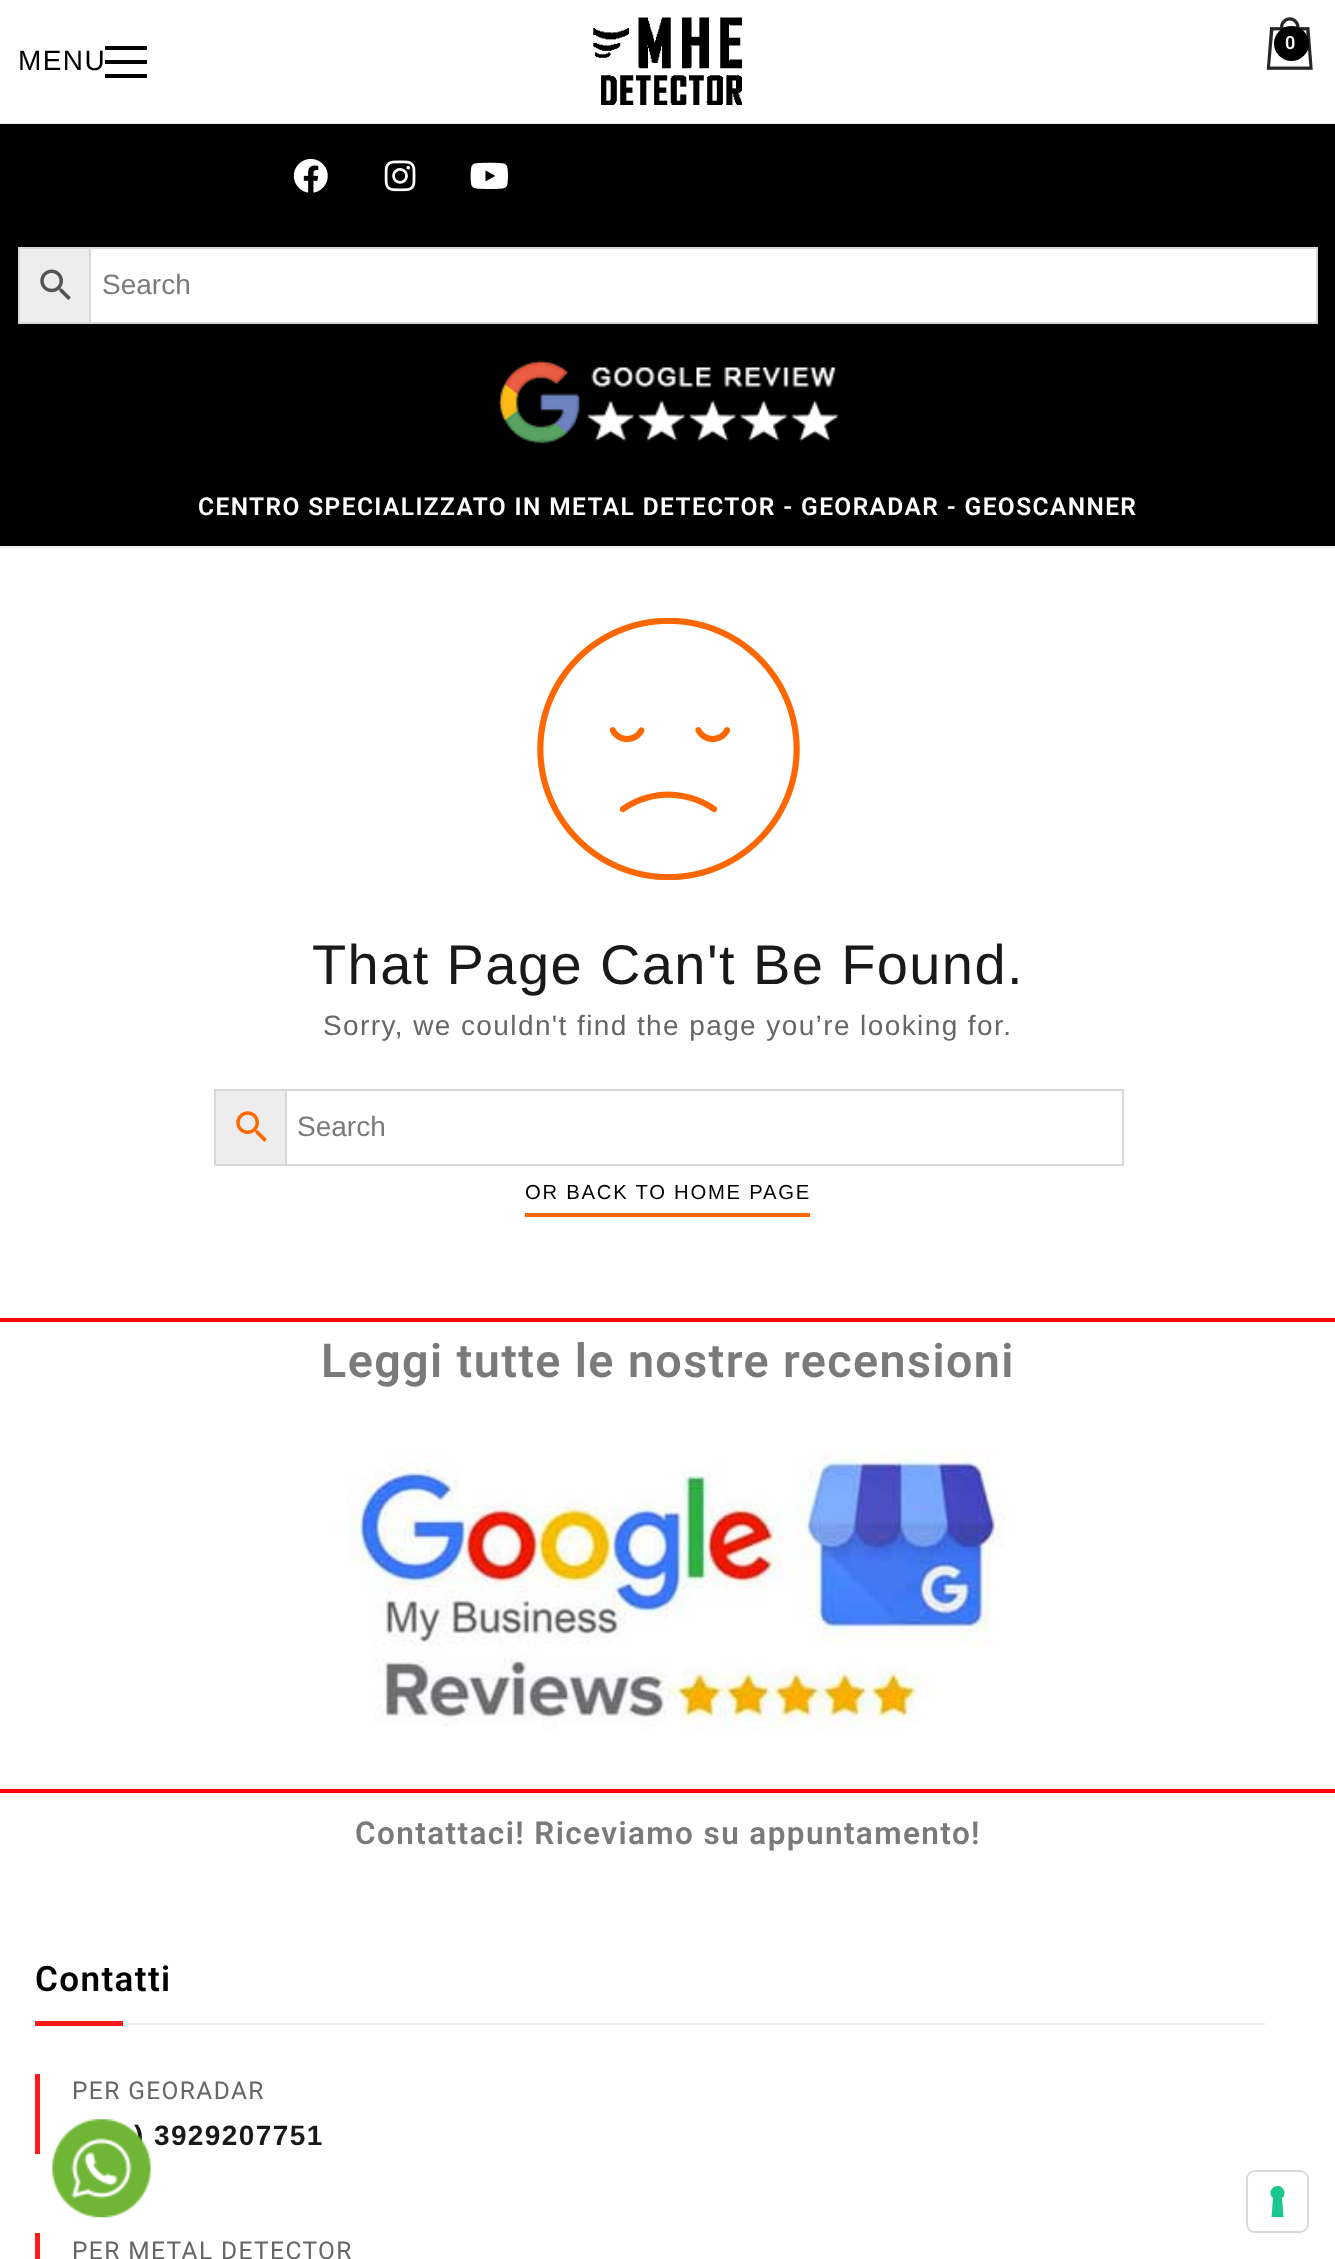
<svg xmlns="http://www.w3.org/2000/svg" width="1335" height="2259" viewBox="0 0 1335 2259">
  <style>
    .t1 { font: 600 18px Roboto; letter-spacing: 1.4px; fill: #fff; }
    .t2 { font: 28px Liberation Sans; letter-spacing: 1.4px; fill: #000; }
    .t3 { font: 28px Liberation Sans; fill: #7a7a7a; }
    .t4 { font: 600 24.5px Roboto; letter-spacing: 1.4px; fill: #fff; }
    .t5 { font: 56px Liberation Sans; letter-spacing: 1.4px; fill: #191919; }
    .t6 { font: 28px Liberation Sans; letter-spacing: 1.4px; fill: #666; }
    .t7 { font: 20.25px Liberation Sans; letter-spacing: 1.75px; fill: #000; }
    .t8 { font: 600 46.7px Roboto; letter-spacing: 1.4px; fill: #7a7a7a; }
    .t9 { font: 600 31.5px Roboto; letter-spacing: 1.4px; fill: #7a7a7a; }
    .t10 { font: 600 35px Roboto; letter-spacing: 1.4px; fill: #000; }
    .t11 { font: 24.5px Roboto; letter-spacing: 1.4px; fill: #666; }
    .t12 { font: bold 28px Liberation Sans; letter-spacing: 1.4px; fill: #191919; }
  </style>
  <rect width="100%" height="100%" fill="#fff"/>
  <rect x="0" y="123" width="1335" height="1" fill="#ebebeb"/>
  <image x="593" y="17" width="149" height="88" href="images/1.png"/>
  <image x="1266" y="17" width="47" height="53" href="images/2.png"/>
  <circle cx="1291.5" cy="43.5" r="17.5" fill="#000"/>
  <text x="1285" y="49" class="t1">0</text>
  <text x="18" y="70" class="t2">MENU</text>
  <rect x="105" y="60" width="42" height="4" fill="#000"/>
  <rect x="105" y="46" width="42" height="4" fill="#000"/>
  <rect x="105" y="74" width="42" height="4" fill="#000"/>
  <rect x="0" y="124" width="1335" height="422" fill="#000"/>
  <rect x="0" y="546" width="1335" height="2" fill="#ebebeb"/>
  <image x="293" y="158" width="35" height="35" href="images/3.png"/>
  <image x="384" y="160" width="32" height="32" href="images/4.png"/>
  <image x="470" y="162" width="38" height="27" href="images/5.png"/>
  <rect x="91" y="249" width="1225" height="73" fill="#fff"/>
  <rect x="19" y="248" width="71" height="75" fill="#ededed" stroke="#d8d8d8" stroke-width="2"/>
  <image x="40" y="269" width="31" height="31" href="images/6.png"/>
  <rect x="90" y="248" width="1227" height="75" fill="none" stroke="#d8d8d8" stroke-width="2"/>
  <text x="102" y="294" class="t3">Search</text>
  <image x="498" y="360" width="341" height="84" href="images/7.png"/>
  <text x="198" y="515" class="t4">CENTRO SPECIALIZZATO IN METAL DETECTOR - GEORADAR - GEOSCANNER</text>
  <image x="537" y="618" width="263" height="262" href="images/8.png"/>
  <text x="312" y="984" class="t5">That Page Can't Be Found.</text>
  <text x="323" y="1035" class="t6">Sorry, we couldn't find the page you’re looking for.</text>
  <rect x="215" y="1090" width="71" height="75" fill="#ededed" stroke="#d8d8d8" stroke-width="2"/>
  <image x="236" y="1111" width="31" height="31" href="images/9.png"/>
  <rect x="286" y="1090" width="837" height="75" fill="none" stroke="#d8d8d8" stroke-width="2"/>
  <text x="297" y="1136" class="t3">Search</text>
  <text x="525" y="1199" class="t7">OR BACK TO HOME PAGE</text>
  <rect x="525" y="1213" width="285" height="4" fill="#fc6702"/>
  <rect x="0" y="1318" width="1335" height="4" fill="#fb0303"/>
  <rect x="0" y="1789" width="1335" height="4" fill="#fb0303"/>
  <text x="321" y="1377" class="t8">Leggi tutte le nostre recensioni</text>
  <image x="347" y="1449" width="671" height="281" href="images/10.png"/>
  <text x="355" y="1844" class="t9">Contattaci! Riceviamo su appuntamento!</text>
  <rect x="123" y="2023" width="1142" height="2" fill="#ebebeb"/>
  <text x="35" y="1991" class="t10">Contatti</text>
  <rect x="35" y="2021" width="88" height="5" fill="#ff1a1a"/>
  <rect x="35" y="2074" width="5" height="80" fill="#ff1a1a"/>
  <text x="72" y="2099" class="t11">PER GEORADAR</text>
  <text x="134" y="2145" class="t12">) 3929207751</text>
  <rect x="35" y="2233" width="5" height="26" fill="#ff1a1a"/>
  <text x="72" y="2259" class="t11">PER METAL DETECTOR</text>
  <image x="52" y="2119" width="99" height="99" href="images/11.png"/>
  <rect x="1247" y="2171" width="61" height="61" rx="8" fill="none" stroke="#d9d9d9" stroke-width="2"/>
  <rect x="1248" y="2172" width="59" height="59" rx="7" fill="#fff"/>
  <path d="M1277.5 2186C1284 2186 1287 2194 1282 2198L1283.5 2217H1271.5L1273 2198C1268 2194 1271 2186 1277.5 2186Z" fill="#1cc691" fill-rule="evenodd"/>
</svg>
